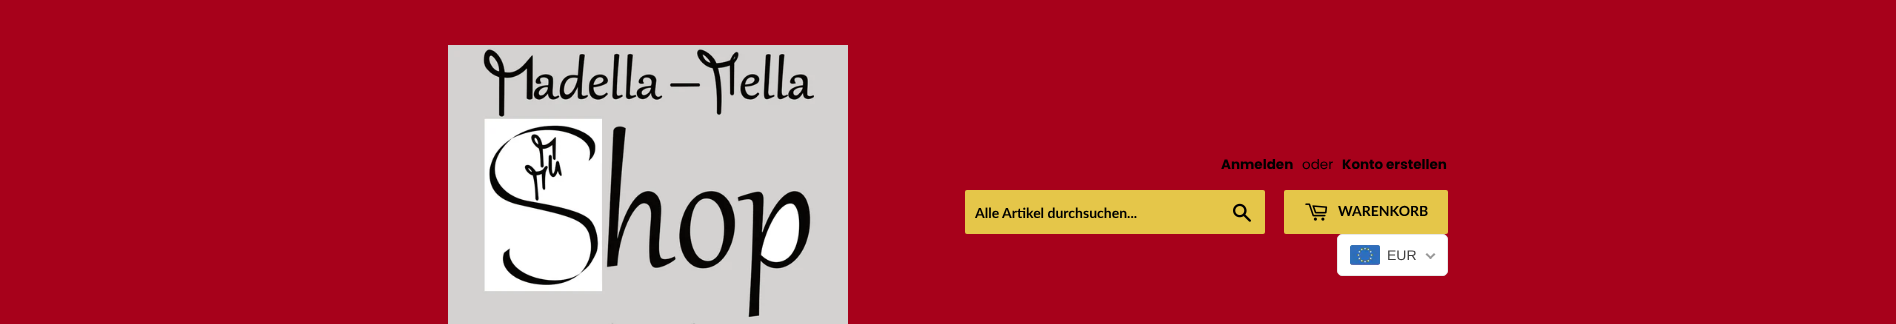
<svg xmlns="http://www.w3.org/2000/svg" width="1896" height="324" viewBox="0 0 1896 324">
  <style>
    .t1 { font: bold 13.5px Poppins; fill: #000; }
    .t2 { font: 13.5px Poppins; fill: #000; }
    .t3 { font: bold 14px Lato; fill: #000; }
    .t4 { font: 14px Liberation Sans; fill: #403f3f; }
  </style>
  <rect width="100%" height="100%" fill="#a7011b"/>
  <image x="448" y="45" width="400" height="279" href="images/1.png"/>
  <text x="1221" y="169" class="t1">Anmelden</text>
  <text x="1302" y="169" class="t2">oder</text>
  <text x="1342" y="169" class="t1">Konto erstellen</text>
  <rect x="965" y="190" width="300" height="44" rx="2" fill="#e5c649"/>
  <text x="975" y="218" class="t3">Alle Artikel durchsuchen...</text>
  <image x="1233" y="203" width="18" height="19" href="images/2.png"/>
  <rect x="1284" y="190" width="164" height="44" rx="2" fill="#e5c649"/>
  <image x="1305" y="203" width="23" height="18" href="images/3.png"/>
  <text x="1338" y="216" class="t3">WARENKORB</text>
  <rect x="1337.5" y="234.5" width="110" height="41" rx="4.5" fill="#fff" stroke="#e8e8e8"/>
  <image x="1350" y="245" width="30" height="20" href="images/4.png"/>
  <text x="1387" y="260" class="t4">EUR</text>
  <path d="M1434 253L1435.5 254.5L1430.5 259L1429 258Z" fill="#999"/>
  <path d="M1427 253L1432 258L1430.5 259L1425.5 254.5Z" fill="#999"/>
</svg>
